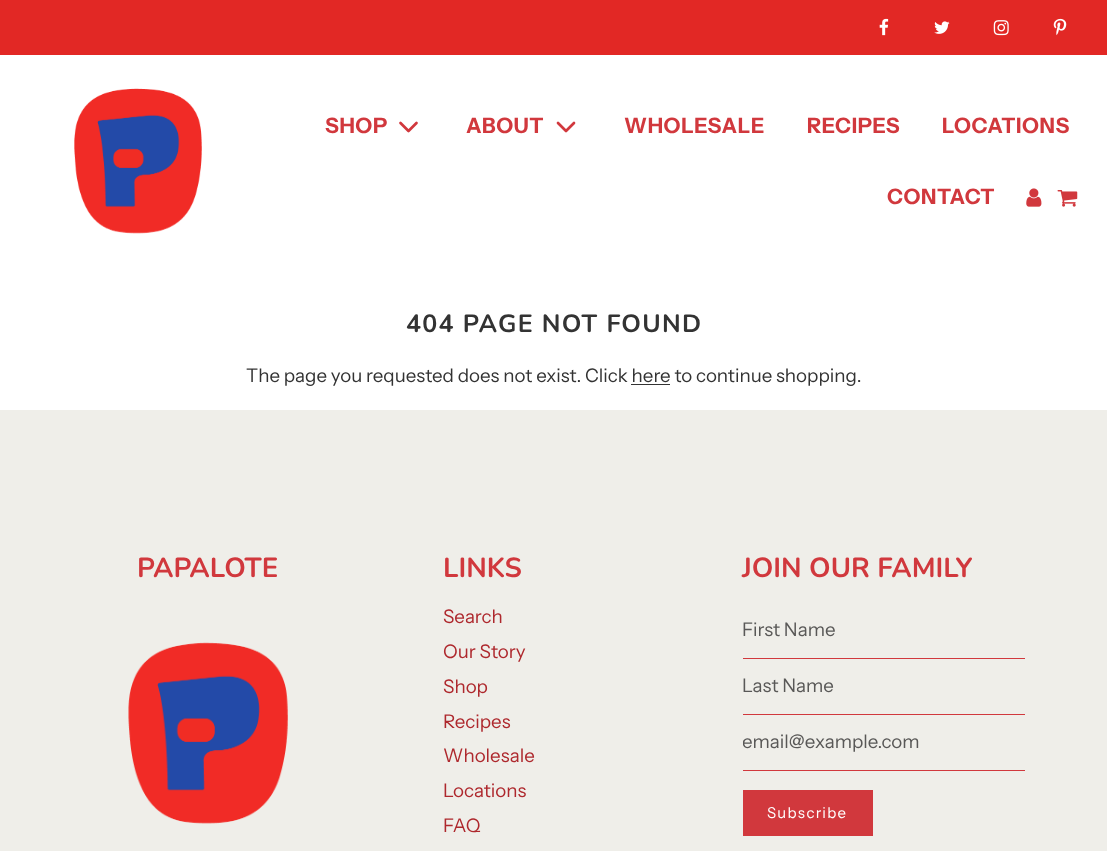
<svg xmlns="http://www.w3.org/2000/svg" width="1107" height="851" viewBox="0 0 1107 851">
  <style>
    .t1 { font: bold 21.25px Instrument Sans; letter-spacing: 0.6px; fill: #d1383d; }
    .t2 { font: bold 25px Nunito; letter-spacing: 1.25px; fill: #333; }
    .t3 { font: 18.75px Instrument Sans; fill: #333; }
    .t4 { font: bold 27.5px Nunito; fill: #d1383d; }
    .t5 { font: 18.75px Instrument Sans; fill: #ae282d; }
    .t6 { font: 18.75px Instrument Sans; fill: #595857; }
    .t7 { font: 15px Instrument Sans; letter-spacing: 1.25px; fill: #fff; }
  </style>
  <defs>
    <clipPath id="clip1"><rect x="743" y="730" width="270" height="24"/></clipPath>
  </defs>
  <rect width="100%" height="100%" fill="#fff"/>
  <rect x="0" y="0" width="1107" height="55" fill="#e22825"/>
  <image x="879" y="18" width="10" height="18" href="images/1.png"/>
  <image x="934" y="21" width="16" height="13" href="images/2.png"/>
  <image x="993" y="20" width="16" height="16" href="images/3.png"/>
  <image x="1053" y="18" width="14" height="18" href="images/4.png"/>
  <image x="74" y="88" width="128" height="146" href="images/5.png"/>
  <text x="325" y="133" class="t1">SHOP</text>
  <path d="M400.5 123L408.5 131L416.5 123" fill="none" stroke="#d1383d" stroke-width="2.7" stroke-linecap="round" stroke-linejoin="round"/>
  <text x="466" y="133" class="t1">ABOUT</text>
  <path d="M558 123L566 131L574 123" fill="none" stroke="#d1383d" stroke-width="2.7" stroke-linecap="round" stroke-linejoin="round"/>
  <text x="624" y="133" class="t1">WHOLESALE</text>
  <text x="807" y="133" class="t1">RECIPES</text>
  <text x="942" y="133" class="t1">LOCATIONS</text>
  <text x="887" y="204" class="t1">CONTACT</text>
  <image x="1026" y="188" width="16" height="19" href="images/6.png"/>
  <image x="1057" y="190" width="21" height="17" href="images/7.png"/>
  <text x="406" y="332" class="t2">404 PAGE NOT FOUND</text>
  <text x="246" y="382" class="t3">The page you requested does not exist. Click here to continue shopping.</text>
  <rect x="631" y="384" width="39" height="1" fill="#333"/>
  <rect x="0" y="410" width="1107" height="441" fill="#efeee9"/>
  <text x="137" y="577" class="t4">PAPALOTE</text>
  <image x="128" y="642" width="160" height="182" href="images/8.png"/>
  <text x="443" y="577" class="t4">LINKS</text>
  <text x="443" y="623" class="t5">Search</text>
  <text x="443" y="658" class="t5">Our Story</text>
  <text x="443" y="693" class="t5">Shop</text>
  <text x="443" y="728" class="t5">Recipes</text>
  <text x="443" y="762" class="t5">Wholesale</text>
  <text x="443" y="797" class="t5">Locations</text>
  <text x="443" y="832" class="t5">FAQ</text>
  <text x="742" y="577" class="t4">JOIN OUR FAMILY</text>
  <rect x="743" y="658" width="282" height="1" fill="#d1383d"/>
  <text x="742" y="636" class="t6">First Name</text>
  <rect x="743" y="714" width="282" height="1" fill="#d1383d"/>
  <text x="742" y="692" class="t6">Last Name</text>
  <rect x="743" y="770" width="282" height="1" fill="#d1383d"/>
  <g clip-path="url(#clip1)">
    <text x="742" y="748" class="t6">email@example.com</text>
  </g>
  <rect x="743" y="790" width="130" height="46" fill="#d1383d"/>
  <text x="767" y="818" class="t7">Subscribe</text>
</svg>
